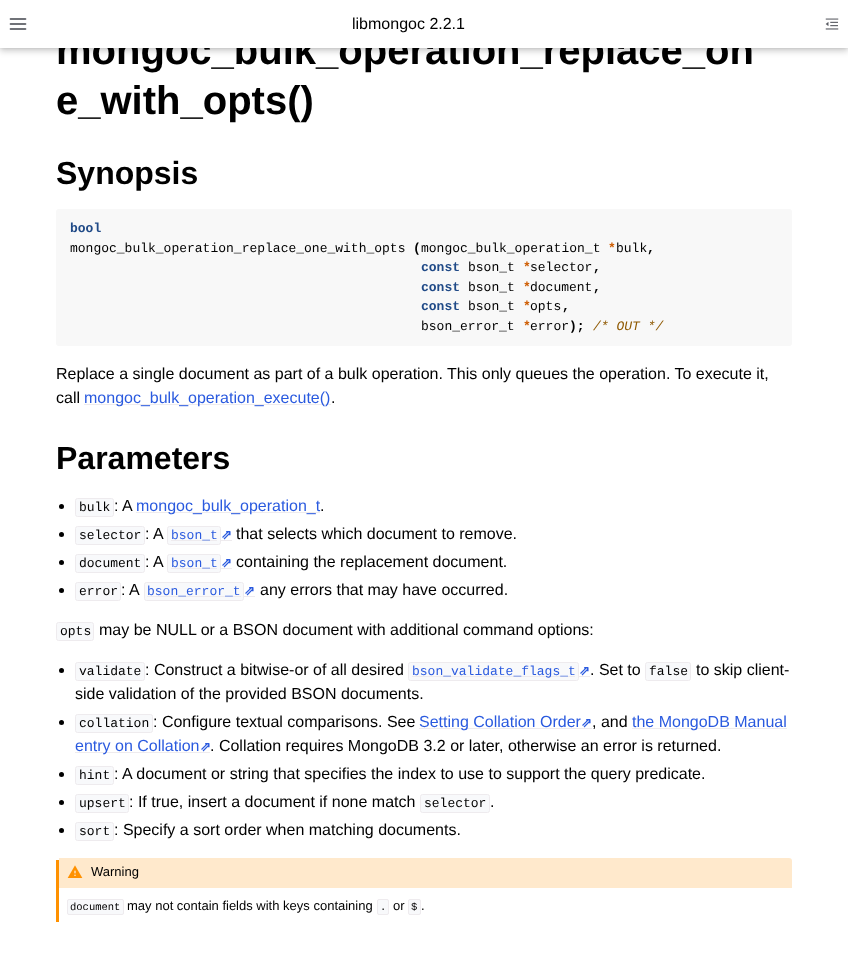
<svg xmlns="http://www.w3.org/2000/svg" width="848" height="955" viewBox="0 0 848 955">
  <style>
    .t1 { font: bold 40px Liberation Sans; fill: #000; }
    .t2 { font: 16px Liberation Sans; fill: #000; }
    .t3 { font: bold 32px Liberation Sans; fill: #000; }
    .t4 { font: bold 13px Liberation Mono; fill: #204a87; }
    .t5 { font: 13px Liberation Mono; fill: #000; }
    .t6 { font: bold 13px Liberation Mono; fill: #000; }
    .t7 { font: bold 13px Liberation Mono; fill: #ce5c00; }
    .t8 { font: italic 13px Liberation Mono; fill: #8f5902; }
    .t9 { font: 16px Liberation Sans; fill: #2a5adf; }
    .t10 { font: 13px Liberation Mono; fill: #2a5adf; }
    .t11 { font: bold 13px DejaVu Sans; fill: #2a5adf; }
    .t12 { font: 13px Liberation Sans; fill: #000; }
    .t13 { font: 10.5px Liberation Mono; fill: #000; }
  </style>
  <rect width="100%" height="100%" fill="#fff"/>
  <rect x="0" y="3" width="848" height="48" fill="#00000033" filter="blur(3px)"/>
  <rect x="0" y="0" width="848" height="48" fill="#0000001a" filter="blur(1.5px)"/>
  <text x="56" y="64" class="t1">mongoc_bulk_operation_replace_on</text>
  <rect x="0" y="0" width="848" height="48" fill="#fff"/>
  <image x="9" y="18" width="18" height="12" href="images/1.png"/>
  <text x="352" y="29" class="t2">libmongoc 2.2.1</text>
  <image x="825" y="18" width="14" height="12" href="images/2.png"/>
  <text x="56" y="114" class="t1">e_with_opts()</text>
  <text x="56" y="184" class="t3">Synopsis</text>
  <rect x="56" y="209" width="736" height="137" rx="3" fill="#f8f8f8"/>
  <text x="70" y="232" class="t4">bool</text>
  <text x="70" y="252" class="t5">mongoc_bulk_operation_replace_one_with_opts</text>
  <text x="413" y="252" class="t6">(</text>
  <text x="421" y="252" class="t5">mongoc_bulk_operation_t</text>
  <text x="608" y="252" class="t7">*</text>
  <text x="616" y="252" class="t5">bulk</text>
  <text x="647" y="252" class="t6">,</text>
  <text x="421" y="271" class="t4">const</text>
  <text x="468" y="271" class="t5">bson_t</text>
  <text x="523" y="271" class="t7">*</text>
  <text x="530" y="271" class="t5">selector</text>
  <text x="593" y="271" class="t6">,</text>
  <text x="421" y="291" class="t4">const</text>
  <text x="468" y="291" class="t5">bson_t</text>
  <text x="523" y="291" class="t7">*</text>
  <text x="530" y="291" class="t5">document</text>
  <text x="593" y="291" class="t6">,</text>
  <text x="421" y="310" class="t4">const</text>
  <text x="468" y="310" class="t5">bson_t</text>
  <text x="523" y="310" class="t7">*</text>
  <text x="530" y="310" class="t5">opts</text>
  <text x="562" y="310" class="t6">,</text>
  <text x="421" y="330" class="t5">bson_error_t</text>
  <text x="523" y="330" class="t7">*</text>
  <text x="530" y="330" class="t5">error</text>
  <text x="569" y="330" class="t6">);</text>
  <text x="593" y="330" class="t8">/* OUT */</text>
  <text x="56" y="379" class="t2">Replace a single document as part of a bulk operation. This only queues the operation. To execute it,</text>
  <text x="56" y="403" class="t2">call</text>
  <rect x="84" y="404" width="247" height="1" fill="#eeebee"/>
  <text x="84" y="403" class="t9">mongoc_bulk_operation_execute()</text>
  <text x="331" y="403" class="t2">.</text>
  <text x="56" y="469" class="t3">Parameters</text>
  <circle cx="61.5" cy="506.5" r="2.5" fill="#000"/>
  <rect x="75.5" y="498.5" width="38" height="18" rx="2" fill="#f8f9fb" stroke="#eeebee"/>
  <text x="79" y="511" class="t5">bulk</text>
  <text x="114" y="511" class="t2">: A</text>
  <rect x="136" y="512" width="184" height="1" fill="#eeebee"/>
  <text x="136" y="511" class="t9">mongoc_bulk_operation_t</text>
  <text x="320" y="511" class="t2">.</text>
  <circle cx="61.5" cy="534.5" r="2.5" fill="#000"/>
  <rect x="75.5" y="526.5" width="69" height="18" rx="2" fill="#f8f9fb" stroke="#eeebee"/>
  <text x="79" y="539" class="t5">selector</text>
  <text x="145" y="539" class="t2">: A</text>
  <rect x="167.5" y="526.5" width="53" height="18" rx="2" fill="#f8f9fb" stroke="#eeebee"/>
  <rect x="171" y="540" width="46" height="1" fill="#eeebee"/>
  <text x="171" y="539" class="t10">bson_t</text>
  <text x="221" y="539" class="t11">⇗</text>
  <rect x="221" y="540" width="11" height="1" fill="#eeebee"/>
  <text x="236" y="539" class="t2">that selects which document to remove.</text>
  <circle cx="61.5" cy="562.5" r="2.5" fill="#000"/>
  <rect x="75.5" y="554.5" width="69" height="18" rx="2" fill="#f8f9fb" stroke="#eeebee"/>
  <text x="79" y="567" class="t5">document</text>
  <text x="145" y="567" class="t2">: A</text>
  <rect x="167.5" y="554.5" width="53" height="18" rx="2" fill="#f8f9fb" stroke="#eeebee"/>
  <rect x="171" y="568" width="46" height="1" fill="#eeebee"/>
  <text x="171" y="567" class="t10">bson_t</text>
  <text x="221" y="567" class="t11">⇗</text>
  <rect x="221" y="568" width="11" height="1" fill="#eeebee"/>
  <text x="236" y="567" class="t2">containing the replacement document.</text>
  <circle cx="61.5" cy="590.5" r="2.5" fill="#000"/>
  <rect x="75.5" y="582.5" width="45" height="18" rx="2" fill="#f8f9fb" stroke="#eeebee"/>
  <text x="79" y="595" class="t5">error</text>
  <text x="121" y="595" class="t2">: A</text>
  <rect x="144.5" y="582.5" width="99" height="18" rx="2" fill="#f8f9fb" stroke="#eeebee"/>
  <rect x="147" y="596" width="94" height="1" fill="#eeebee"/>
  <text x="147" y="595" class="t10">bson_error_t</text>
  <text x="244" y="595" class="t11">⇗</text>
  <rect x="244" y="596" width="11" height="1" fill="#eeebee"/>
  <text x="260" y="595" class="t2">any errors that may have occurred.</text>
  <rect x="56.5" y="622.5" width="37" height="18" rx="2" fill="#f8f9fb" stroke="#eeebee"/>
  <text x="60" y="635" class="t5">opts</text>
  <text x="99" y="635" class="t2">may be NULL or a BSON document with additional command options:</text>
  <circle cx="61.5" cy="670.5" r="2.5" fill="#000"/>
  <rect x="75.5" y="662.5" width="69" height="18" rx="2" fill="#f8f9fb" stroke="#eeebee"/>
  <text x="79" y="675" class="t5">validate</text>
  <text x="145" y="675" class="t2">: Construct a bitwise-or of all desired</text>
  <rect x="408.5" y="662.5" width="170" height="18" rx="2" fill="#f8f9fb" stroke="#eeebee"/>
  <rect x="412" y="676" width="163" height="1" fill="#eeebee"/>
  <text x="412" y="675" class="t10">bson_validate_flags_t</text>
  <text x="579" y="675" class="t11">⇗</text>
  <rect x="579" y="676" width="11" height="1" fill="#eeebee"/>
  <text x="590" y="675" class="t2">. Set to</text>
  <rect x="645.5" y="662.5" width="45" height="18" rx="2" fill="#f8f9fb" stroke="#eeebee"/>
  <text x="649" y="675" class="t5">false</text>
  <text x="696" y="675" class="t2">to skip client-</text>
  <text x="75" y="699" class="t2">side validation of the provided BSON documents.</text>
  <circle cx="61.5" cy="722.5" r="2.5" fill="#000"/>
  <rect x="75.5" y="714.5" width="77" height="18" rx="2" fill="#f8f9fb" stroke="#eeebee"/>
  <text x="79" y="727" class="t5">collation</text>
  <text x="153" y="727" class="t2">: Configure textual comparisons. See</text>
  <rect x="419" y="728" width="173" height="1" fill="#eeebee"/>
  <text x="419" y="727" class="t9">Setting Collation Order</text>
  <text x="581" y="727" class="t11">⇗</text>
  <text x="592" y="727" class="t2">, and</text>
  <rect x="632" y="728" width="155" height="1" fill="#eeebee"/>
  <text x="632" y="727" class="t9">the MongoDB Manual</text>
  <rect x="75" y="752" width="135" height="1" fill="#eeebee"/>
  <text x="75" y="751" class="t9">entry on Collation</text>
  <text x="200" y="751" class="t11">⇗</text>
  <text x="210" y="751" class="t2">. Collation requires MongoDB 3.2 or later, otherwise an error is returned.</text>
  <circle cx="61.5" cy="774.5" r="2.5" fill="#000"/>
  <rect x="75.5" y="766.5" width="38" height="18" rx="2" fill="#f8f9fb" stroke="#eeebee"/>
  <text x="79" y="779" class="t5">hint</text>
  <text x="114" y="779" class="t2">: A document or string that specifies the index to use to support the query predicate.</text>
  <circle cx="61.5" cy="802.5" r="2.5" fill="#000"/>
  <rect x="75.5" y="794.5" width="53" height="18" rx="2" fill="#f8f9fb" stroke="#eeebee"/>
  <text x="79" y="807" class="t5">upsert</text>
  <text x="129" y="807" class="t2">: If true, insert a document if none match</text>
  <rect x="420.5" y="794.5" width="69" height="18" rx="2" fill="#f8f9fb" stroke="#eeebee"/>
  <text x="424" y="807" class="t5">selector</text>
  <text x="490" y="807" class="t2">.</text>
  <circle cx="61.5" cy="830.5" r="2.5" fill="#000"/>
  <rect x="75.5" y="822.5" width="38" height="18" rx="2" fill="#f8f9fb" stroke="#eeebee"/>
  <text x="79" y="835" class="t5">sort</text>
  <text x="114" y="835" class="t2">: Specify a sort order when matching documents.</text>
  <rect x="56" y="860" width="3" height="62" fill="#ff9100"/>
  <path d="M59 858V888H792V861C792 859 791 858 789 858Z" fill="#ff910033"/>
  <image x="67" y="865" width="16" height="13" href="images/3.png"/>
  <text x="91" y="876" class="t12">Warning</text>
  <rect x="67.5" y="899.5" width="56" height="15" rx="1.5" fill="#f8f9fb" stroke="#eeebee"/>
  <text x="70" y="910" class="t13">document</text>
  <text x="127" y="910" class="t12">may not contain fields with keys containing</text>
  <rect x="377.5" y="899.5" width="11" height="15" rx="1.5" fill="#f8f9fb" stroke="#eeebee"/>
  <text x="380" y="910" class="t13">.</text>
  <text x="393" y="910" class="t12">or</text>
  <rect x="408.5" y="899.5" width="12" height="15" rx="1.5" fill="#f8f9fb" stroke="#eeebee"/>
  <text x="411" y="910" class="t13">$</text>
  <text x="421" y="910" class="t12">.</text>
</svg>
